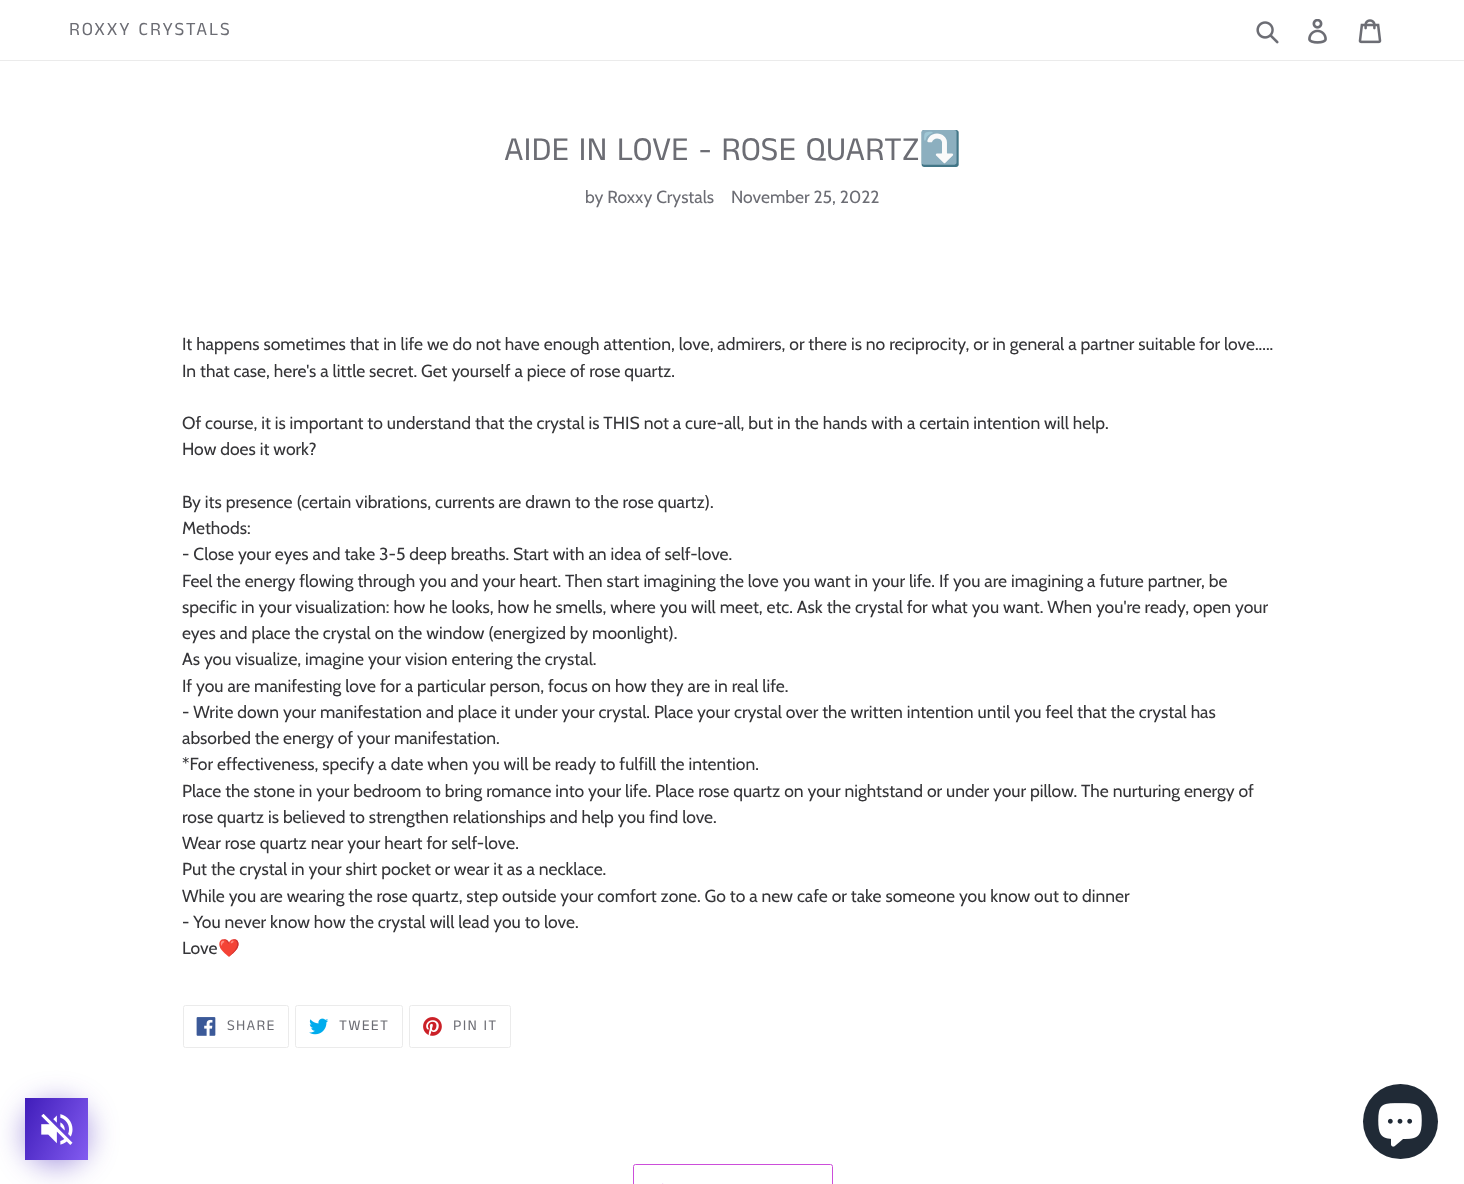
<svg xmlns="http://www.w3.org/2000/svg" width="1464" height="1184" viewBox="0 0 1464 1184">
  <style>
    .t1 { font: 18.75px Anek Tamil; letter-spacing: 1.9px; fill: #6c6d74; }
    .t2 { font: 33.75px Anek Tamil; fill: #6c6d74; }
    .t3 { font: 33.75px Noto Color Emoji; fill: #6c6d74; }
    .t4 { font: 17.5px Cabin; fill: #6c6d74; }
    .t5 { font: 17.5px Cabin; fill: #353538; }
    .t6 { font: 17.5px Noto Color Emoji; fill: #353538; }
    .t7 { font: 15px Anek Tamil; letter-spacing: 1.25px; fill: #6c6d74; }
  </style>
  <defs>
    <linearGradient id="g1" gradientUnits="userSpaceOnUse" x1="19" y1="1111" x2="94" y2="1146"><stop offset="0" stop-color="#401dba"/><stop offset="1" stop-color="#825bf0"/></linearGradient>
  </defs>
  <rect width="100%" height="100%" fill="#fff"/>
  <rect x="0" y="60" width="1464" height="1" fill="#ebebeb"/>
  <text x="69" y="35" class="t1">ROXXY CRYSTALS</text>
  <image x="1256" y="21" width="23" height="23" href="images/1.png"/>
  <image x="1308" y="19" width="19" height="25" href="images/2.png"/>
  <image x="1358" y="19" width="24" height="25" href="images/3.png"/>
  <text x="504" y="160" class="t2">AIDE IN LOVE - ROSE QUARTZ</text>
  <text x="919" y="160" class="t3">⤵️</text>
  <text x="585" y="203" class="t4">by Roxxy Crystals</text>
  <text x="731" y="203" class="t4">November 25, 2022</text>
  <text x="182" y="350" class="t5">It happens sometimes that in life we do not have enough attention, love, admirers, or there is no reciprocity, or in general a partner suitable for love.....</text>
  <text x="182" y="377" class="t5">In that case, here's a little secret. Get yourself a piece of rose quartz.</text>
  <text x="182" y="429" class="t5">Of course, it is important to understand that the crystal is THIS not a cure-all, but in the hands with a certain intention will help.</text>
  <text x="182" y="455" class="t5">How does it work?</text>
  <text x="182" y="508" class="t5">By its presence (certain vibrations, currents are drawn to the rose quartz).</text>
  <text x="182" y="534" class="t5">Methods:</text>
  <text x="182" y="560" class="t5">- Close your eyes and take 3-5 deep breaths. Start with an idea of self-love.</text>
  <text x="182" y="587" class="t5">Feel the energy flowing through you and your heart. Then start imagining the love you want in your life. If you are imagining a future partner, be</text>
  <text x="182" y="613" class="t5">specific in your visualization: how he looks, how he smells, where you will meet, etc. Ask the crystal for what you want. When you're ready, open your</text>
  <text x="182" y="639" class="t5">eyes and place the crystal on the window (energized by moonlight).</text>
  <text x="182" y="665" class="t5">As you visualize, imagine your vision entering the crystal.</text>
  <text x="182" y="692" class="t5">If you are manifesting love for a particular person, focus on how they are in real life.</text>
  <text x="182" y="718" class="t5">- Write down your manifestation and place it under your crystal. Place your crystal over the written intention until you feel that the crystal has</text>
  <text x="182" y="744" class="t5">absorbed the energy of your manifestation.</text>
  <text x="182" y="770" class="t5">*For effectiveness, specify a date when you will be ready to fulfill the intention.</text>
  <text x="182" y="797" class="t5">Place the stone in your bedroom to bring romance into your life. Place rose quartz on your nightstand or under your pillow. The nurturing energy of</text>
  <text x="182" y="823" class="t5">rose quartz is believed to strengthen relationships and help you find love.</text>
  <text x="182" y="849" class="t5">Wear rose quartz near your heart for self-love.</text>
  <text x="182" y="875" class="t5">Put the crystal in your shirt pocket or wear it as a necklace.</text>
  <text x="182" y="902" class="t5">While you are wearing the rose quartz, step outside your comfort zone. Go to a new cafe or take someone you know out to dinner</text>
  <text x="182" y="928" class="t5">- You never know how the crystal will lead you to love.</text>
  <text x="182" y="954" class="t5">Love</text>
  <text x="218" y="954" class="t6">❤️</text>
  <rect x="183.5" y="1005.5" width="105" height="42" rx="2" fill="none" stroke="#ebebeb"/>
  <image x="196" y="1017" width="20" height="19" href="images/4.png"/>
  <text x="227" y="1030" class="t7">SHARE</text>
  <rect x="295.5" y="1005.5" width="107" height="42" rx="2" fill="none" stroke="#ebebeb"/>
  <image x="309" y="1018" width="20" height="17" href="images/5.png"/>
  <text x="339" y="1030" class="t7">TWEET</text>
  <rect x="409.5" y="1005.5" width="101" height="42" rx="2" fill="none" stroke="#ebebeb"/>
  <image x="423" y="1017" width="19" height="19" href="images/6.png"/>
  <text x="453" y="1030" class="t7">PIN IT</text>
  <rect x="633.5" y="1164.5" width="199" height="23" rx="2" fill="none" stroke="#cc4eda"/>
  <image x="662" y="1183" width="2" height="1" href="images/7.png"/>
  <rect x="25" y="1103" width="63" height="62" rx="31" fill="#401dba80" filter="blur(15px)"/>
  <rect x="25" y="1098" width="63" height="62" fill="url(#g1)"/>
  <image x="41" y="1114" width="32" height="31" href="images/8.png"/>
  <circle cx="1400.5" cy="1121.5" r="37.5" fill="#202a36"/>
  <image x="1378" y="1103" width="44" height="44" href="images/9.png"/>
</svg>
